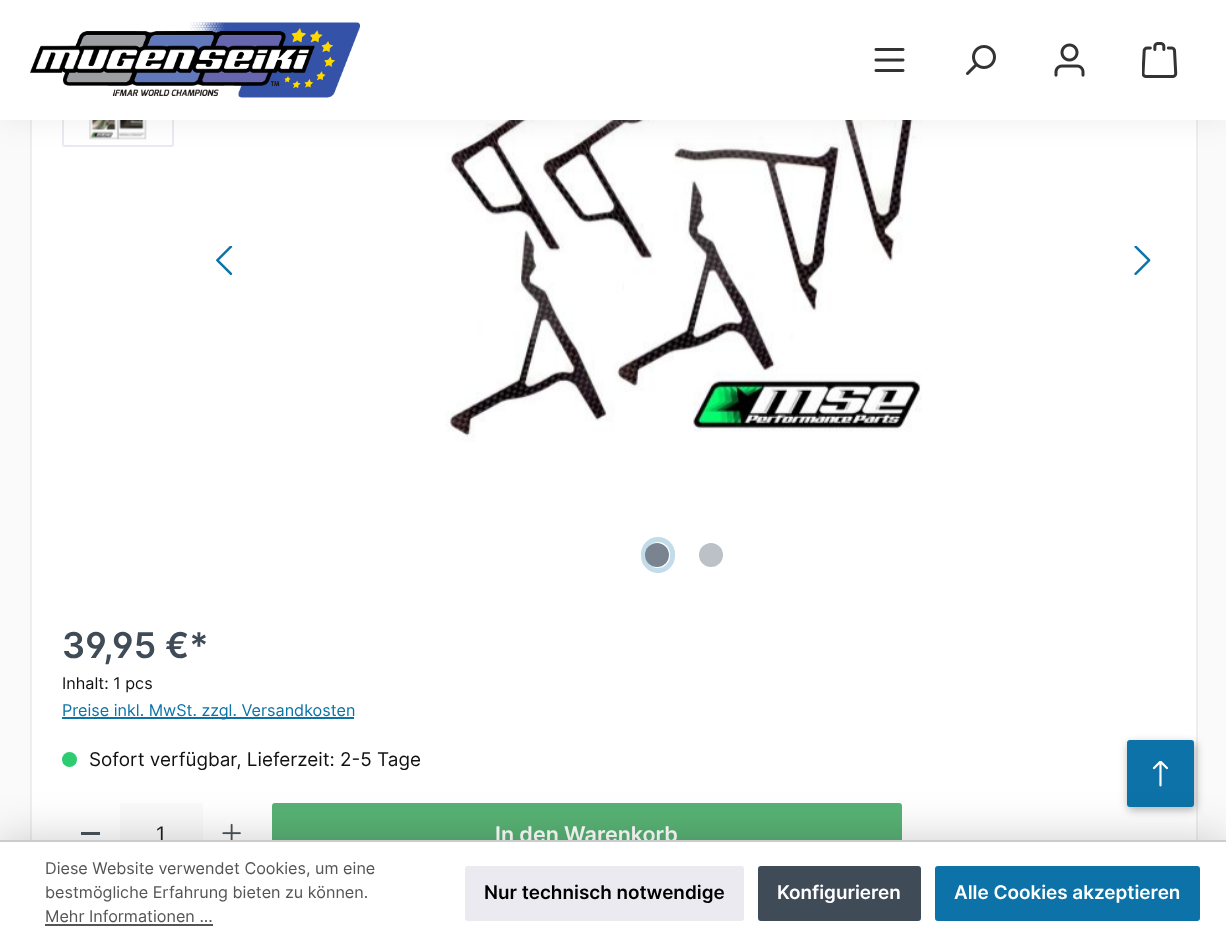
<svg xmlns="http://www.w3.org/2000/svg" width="1226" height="944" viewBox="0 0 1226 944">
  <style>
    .t1 { font: 600 35.5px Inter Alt; fill: #404b58; }
    .t2 { font: 16.2px Inter; fill: #111; }
    .t3 { font: 16.2px Inter; fill: #0c72a7; }
    .t4 { font: 18.9px Inter; fill: #111; }
    .t5 { font: 20px Inter; fill: #222; }
    .t6 { font: 600 21.5px Inter; fill: #fff; }
    .t7 { font: 16.2px Inter; fill: #555; }
    .t8 { font: 600 18.9px Inter; fill: #000; }
    .t9 { font: 600 18.9px Inter; fill: #fff; }
  </style>
  <rect width="100%" height="100%" fill="#fafafa"/>
  <rect x="32" y="120" width="1164" height="720" fill="#fff"/>
  <rect x="1196" y="120" width="2" height="720" fill="#eee"/>
  <rect x="30" y="120" width="2" height="720" fill="#eee"/>
  <rect x="63" y="51" width="110" height="95" rx="2" fill="none" stroke="#eaeaf0" stroke-width="2"/>
  <image x="89" y="120" width="58" height="20" href="images/6.png"/>
  <image x="445" y="120" width="477" height="322" href="images/7.png"/>
  <rect x="0" y="0" width="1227" height="120" fill="#00000012" filter="blur(15px)"/>
  <rect x="0" y="0" width="1226" height="120" fill="#fff"/>
  <image x="30" y="22" width="330" height="76" href="images/1.png"/>
  <image x="874" y="48" width="31" height="24" href="images/2.png"/>
  <image x="966" y="45" width="30" height="30" href="images/3.png"/>
  <image x="1054" y="43" width="31" height="34" href="images/4.png"/>
  <image x="1142" y="42" width="36" height="36" href="images/5.png"/>
  <image x="216" y="246" width="17" height="30" href="images/8.png"/>
  <image x="1134" y="246" width="17" height="30" href="images/9.png"/>
  <rect x="643.5" y="539.5" width="29" height="31" rx="14.5" fill="none" stroke="#c2dce9" stroke-width="5"/>
  <circle cx="657" cy="555" r="12" fill="#798490"/>
  <circle cx="711" cy="555" r="12" fill="#bcc1c7"/>
  <text x="62" y="658" class="t1">39,95 €*</text>
  <text x="62" y="689" class="t2">Inhalt: 1 pcs</text>
  <rect x="62" y="717" width="292" height="2" fill="#0c72a7"/>
  <text x="62" y="716" class="t3">Preise inkl. MwSt. zzgl. Versandkosten</text>
  <circle cx="69.5" cy="759.5" r="7.5" fill="#2ecc71"/>
  <text x="89" y="766" class="t4">Sofort verfügbar, Lieferzeit: 2-5 Tage</text>
  <path d="M65 803H120V869H65C63.5 869 62 867.5 62 866V806C62 804.5 63.5 803 65 803Z" fill="#fff"/>
  <rect x="81" y="832" width="19" height="3" fill="#4a545b"/>
  <rect x="120" y="803" width="83" height="37" fill="#fafafa"/>
  <text x="156" y="841" class="t5">1</text>
  <path d="M203 803H258C259.5 803 261 804.5 261 806V866C261 867.5 259.5 869 258 869H203Z" fill="#fff"/>
  <image x="222" y="823" width="19" height="17" href="images/10.png"/>
  <rect x="273" y="804" width="628" height="64" rx="2" fill="#58b274" stroke="#58b274" stroke-width="2"/>
  <text x="495" y="842" class="t6">In den Warenkorb</text>
  <rect x="1128" y="743" width="68" height="67" rx="3" fill="#0000004d" filter="blur(4.5px)"/>
  <rect x="1128" y="741" width="65" height="65" rx="2" fill="#0c72a7" stroke="#0c72a7" stroke-width="2"/>
  <image x="1152" y="761" width="16" height="26" href="images/11.png"/>
  <rect x="0" y="840" width="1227" height="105" fill="#00000033" filter="blur(22.5px)"/>
  <rect x="0" y="842" width="1226" height="102" fill="#fff"/>
  <rect x="0" y="840" width="1226" height="2" fill="#ccc"/>
  <text x="45" y="874" class="t7">Diese Website verwendet Cookies, um eine</text>
  <text x="45" y="898" class="t7">bestmögliche Erfahrung bieten zu können.</text>
  <text x="45" y="922" class="t7">Mehr Informationen ...</text>
  <rect x="45" y="924" width="168" height="2" fill="#555"/>
  <rect x="466" y="867" width="277" height="53" rx="2" fill="#eaeaf0" stroke="#eaeaf0" stroke-width="2"/>
  <text x="484" y="899" class="t8">Nur technisch notwendige</text>
  <rect x="759" y="867" width="161" height="53" rx="2" fill="#404b58" stroke="#404b58" stroke-width="2"/>
  <text x="777" y="899" class="t9">Konfigurieren</text>
  <rect x="936" y="867" width="263" height="53" rx="2" fill="#0c72a7" stroke="#0c72a7" stroke-width="2"/>
  <text x="954" y="899" class="t9">Alle Cookies akzeptieren</text>
</svg>
